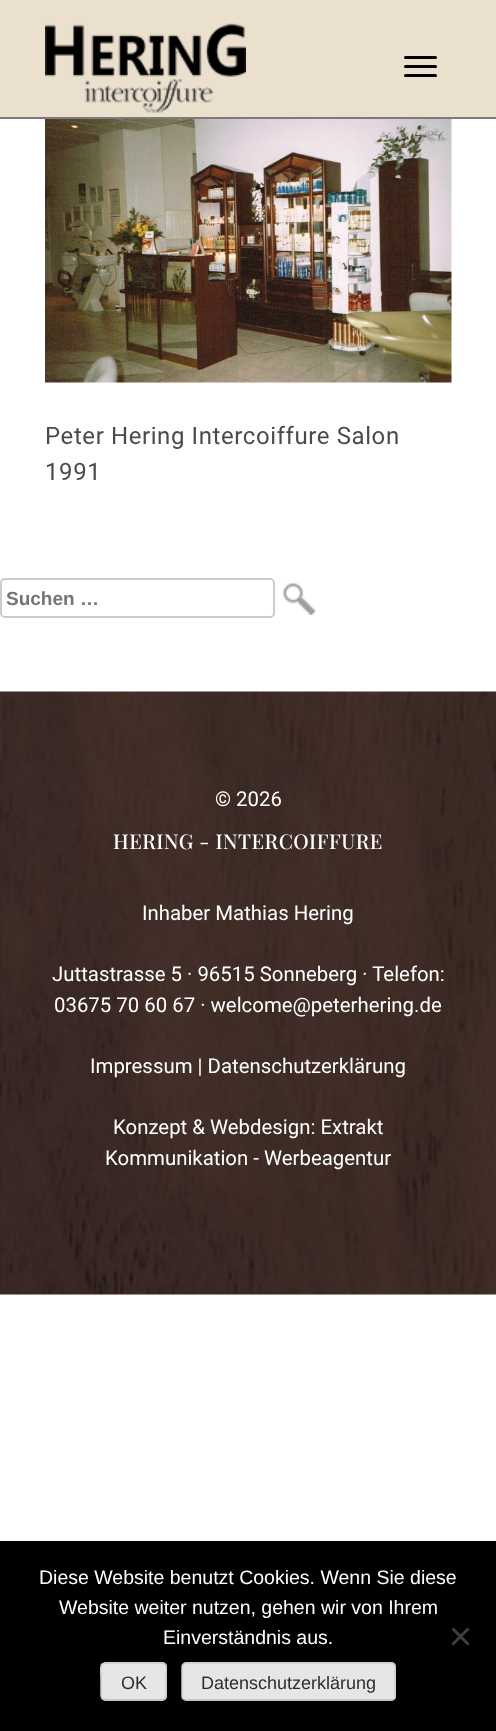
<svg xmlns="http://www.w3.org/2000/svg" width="496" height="1731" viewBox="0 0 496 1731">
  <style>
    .t1 { font: 24px Roboto; letter-spacing: 0.6px; fill: #4a4a4a; }
    .t2 { font: bold 19px Liberation Sans; fill: #757575; }
    .t3 { font: 20.4px Roboto; fill: #fff; }
    .t4 { font: 500 20.4px Playfair Display; letter-spacing: 0.5px; fill: #fff; }
    .t5 { font: 19.5px Liberation Sans; fill: #fff; }
    .t6 { font: 18px Liberation Sans; fill: #2e2e2e; }
  </style>
  <rect width="100%" height="100%" fill="#fff"/>
  <rect x="0" y="0" width="496" height="117" fill="#ebe0cd"/>
  <rect x="0" y="117" width="496" height="2" fill="#7b7b7b"/>
  <image x="45" y="23" width="201" height="90" href="images/1.png"/>
  <rect x="404" y="56" width="33" height="3" rx="1.5" fill="#000"/>
  <rect x="404" y="65" width="33" height="3" rx="1.5" fill="#000"/>
  <rect x="404" y="74" width="33" height="3" rx="1.5" fill="#000"/>
  <image x="45" y="119" width="407" height="264" href="images/2.png"/>
  <text x="45" y="444" class="t1">Peter Hering Intercoiffure Salon</text>
  <text x="45" y="480" class="t1">1991</text>
  <rect x="1" y="579" width="273" height="38" rx="4" fill="none" stroke="#ccc" stroke-width="2"/>
  <text x="6" y="605" class="t2">Suchen …</text>
  <image x="283" y="583" width="33" height="32" href="images/3.png"/>
  <image x="0" y="691" width="496" height="604" href="images/4.png"/>
  <text x="215" y="806" class="t3">© 2026</text>
  <text x="113" y="849" class="t4">HERING - INTERCOIFFURE</text>
  <text x="142" y="920" class="t3">Inhaber Mathias Hering</text>
  <text x="52" y="981" class="t3">Juttastrasse 5 · 96515 Sonneberg · Telefon:</text>
  <text x="54" y="1012" class="t3">03675 70 60 67 · welcome@peterhering.de</text>
  <text x="90" y="1073" class="t3">Impressum | Datenschutzerklärung</text>
  <text x="113" y="1134" class="t3">Konzept &amp; Webdesign: Extrakt</text>
  <text x="105" y="1165" class="t3">Kommunikation - Werbeagentur</text>
  <rect x="0" y="1541" width="496" height="190" fill="#000"/>
  <text x="39" y="1584" class="t5">Diese Website benutzt Cookies. Wenn Sie diese</text>
  <text x="59" y="1614" class="t5">Website weiter nutzen, gehen wir von Ihrem</text>
  <text x="163" y="1644" class="t5">Einverständnis aus.</text>
  <path d="M467.5 1627.5L469.5 1629.5L453.5 1645.5L451.5 1643.5Z" fill="#404040"/>
  <path d="M451.5 1629.5L453.5 1627.5L469.5 1643.5L467.5 1645.5Z" fill="#404040"/>
  <rect x="101" y="1662" width="66" height="39" rx="5" fill="#e6e6e6"/>
  <path d="M164.5 1699L162.5 1700H104.5L102.5 1699" fill="none" stroke="#bbb" stroke-width="1.5"/>
  <path d="M102.5 1699C100.5 1697.5 101 1693.5 101 1691.5V1681.5C101 1662.5 97 1663 114.5 1663H152.5C170 1663 166 1662.5 166 1681.5V1691.5C166 1693.5 166.5 1697.5 164.5 1699" fill="none" stroke="#ccc" stroke-width="1.5"/>
  <text x="121" y="1689" class="t6">OK</text>
  <rect x="182" y="1662" width="214" height="39" rx="5" fill="#e6e6e6"/>
  <path d="M394 1699C393.5 1700 392.5 1700 391.5 1700H186C185 1700 184 1700 183.5 1699" fill="none" stroke="#bbb" stroke-width="1.5"/>
  <path d="M183.5 1699C182.5 1698.5 182 1697.5 182 1696.5V1666.5C182 1665.5 182.5 1664.5 183.5 1664C184 1663 185 1663 186 1663H391.5C392.5 1663 393.5 1663 394 1664C395 1664.5 395 1665.5 395 1666.5V1696.5C395 1697.5 395 1698.5 394 1699" fill="none" stroke="#ccc" stroke-width="1.5"/>
  <text x="201" y="1689" class="t6">Datenschutzerklärung</text>
</svg>
